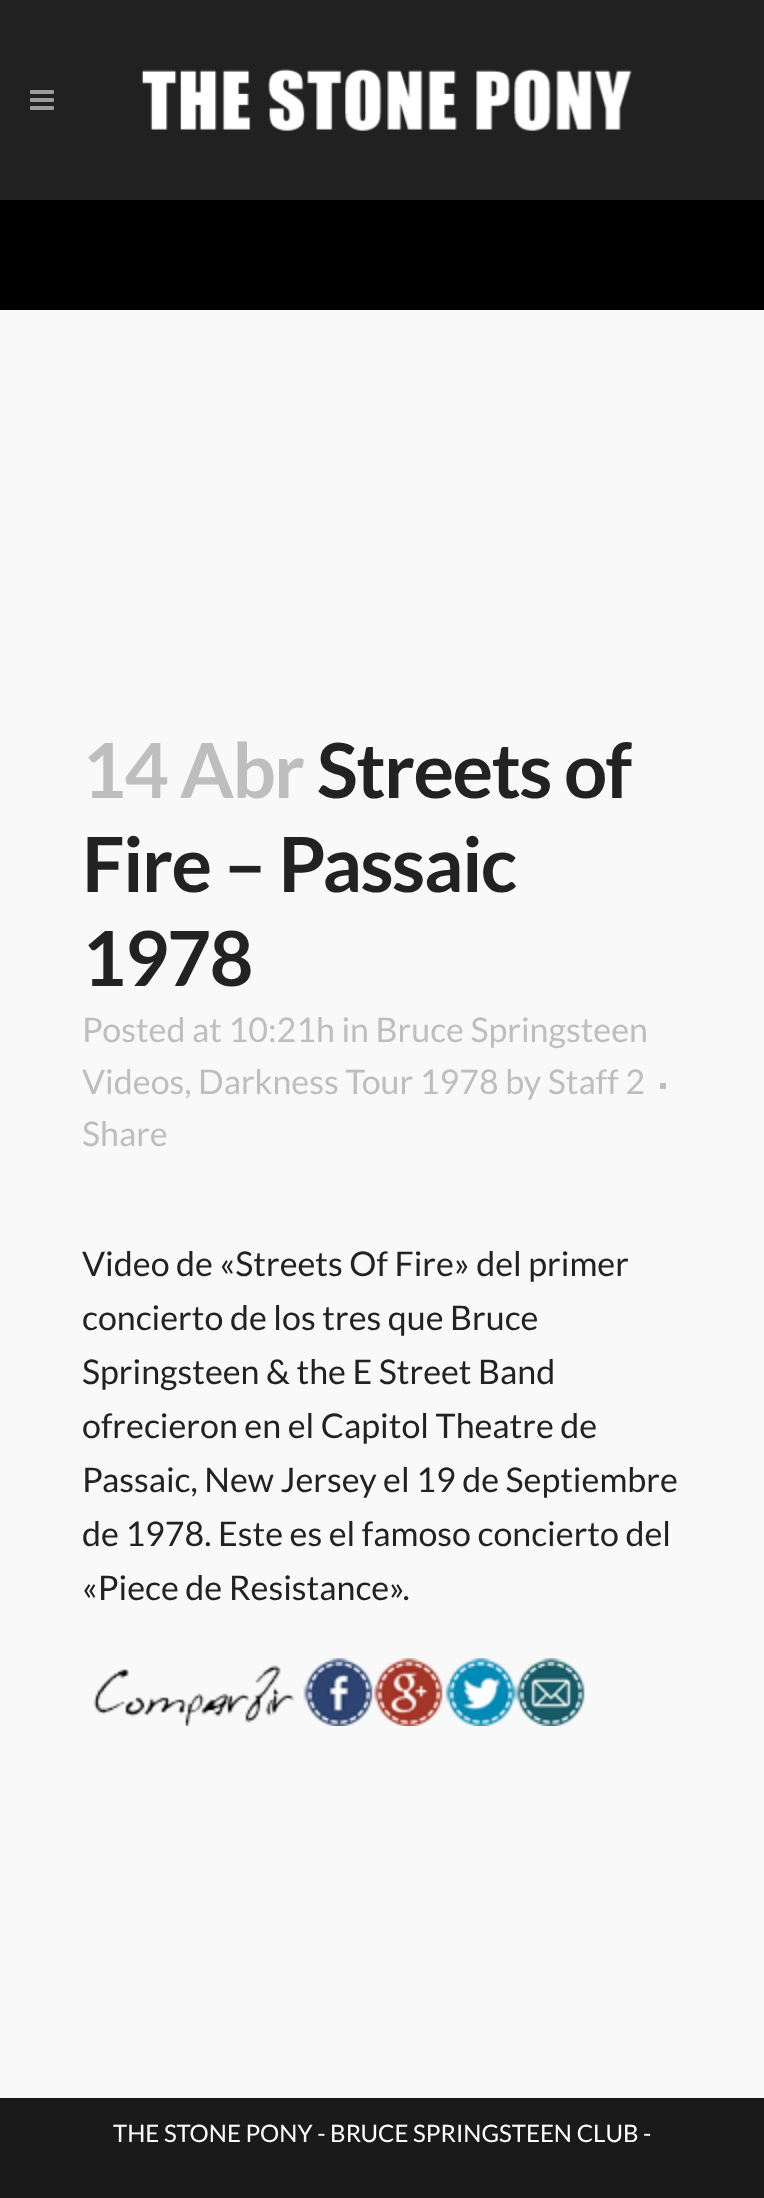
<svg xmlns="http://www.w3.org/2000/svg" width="764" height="2198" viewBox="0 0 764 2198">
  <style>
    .t1 { font: bold 76px Lato; letter-spacing: -1.6px; fill: #bebebe; }
    .t2 { font: bold 76px Lato; letter-spacing: -1.6px; fill: #222; }
    .t3 { font: 34px Lato; fill: #bebebe; }
    .t4 { font: 34px Lato; fill: #222; }
    .t5 { font: 24px Lato; fill: #fff; }
  </style>
  <rect width="100%" height="100%" fill="#000"/>
  <rect x="0" y="0" width="764" height="200" fill="#212121"/>
  <image x="30" y="90" width="24" height="20" href="images/1.png"/>
  <image x="141" y="68" width="491" height="63" href="images/2.png"/>
  <rect x="0" y="310" width="764" height="1788" fill="#f9f9f9"/>
  <text x="82" y="798" class="t1">14 Abr</text>
  <text x="317" y="798" class="t2">Streets of</text>
  <text x="82" y="892" class="t2">Fire – Passaic</text>
  <text x="82" y="986" class="t2">1978</text>
  <text x="82" y="1042" class="t3">Posted at 10:21h in Bruce Springsteen</text>
  <text x="82" y="1094" class="t3">Videos, Darkness Tour 1978 by Staff 2</text>
  <rect x="660" y="1083" width="6" height="6" fill="#bebebe"/>
  <text x="82" y="1146" class="t3">Share</text>
  <text x="82" y="1276" class="t4">Video de «Streets Of Fire» del primer</text>
  <text x="82" y="1330" class="t4">concierto de los tres que Bruce</text>
  <text x="82" y="1384" class="t4">Springsteen &amp; the E Street Band</text>
  <text x="82" y="1438" class="t4">ofrecieron en el Capitol Theatre de</text>
  <text x="82" y="1492" class="t4">Passaic, New Jersey el 19 de Septiembre</text>
  <text x="82" y="1546" class="t4">de 1978. Este es el famoso concierto del</text>
  <text x="82" y="1600" class="t4">«Piece de Resistance».</text>
  <image x="93" y="1658" width="492" height="68" href="images/3.png"/>
  <rect x="0" y="2098" width="764" height="100" fill="#1a1a1a"/>
  <text x="113" y="2142" class="t5">THE STONE PONY - BRUCE SPRINGSTEEN CLUB -</text>
</svg>
